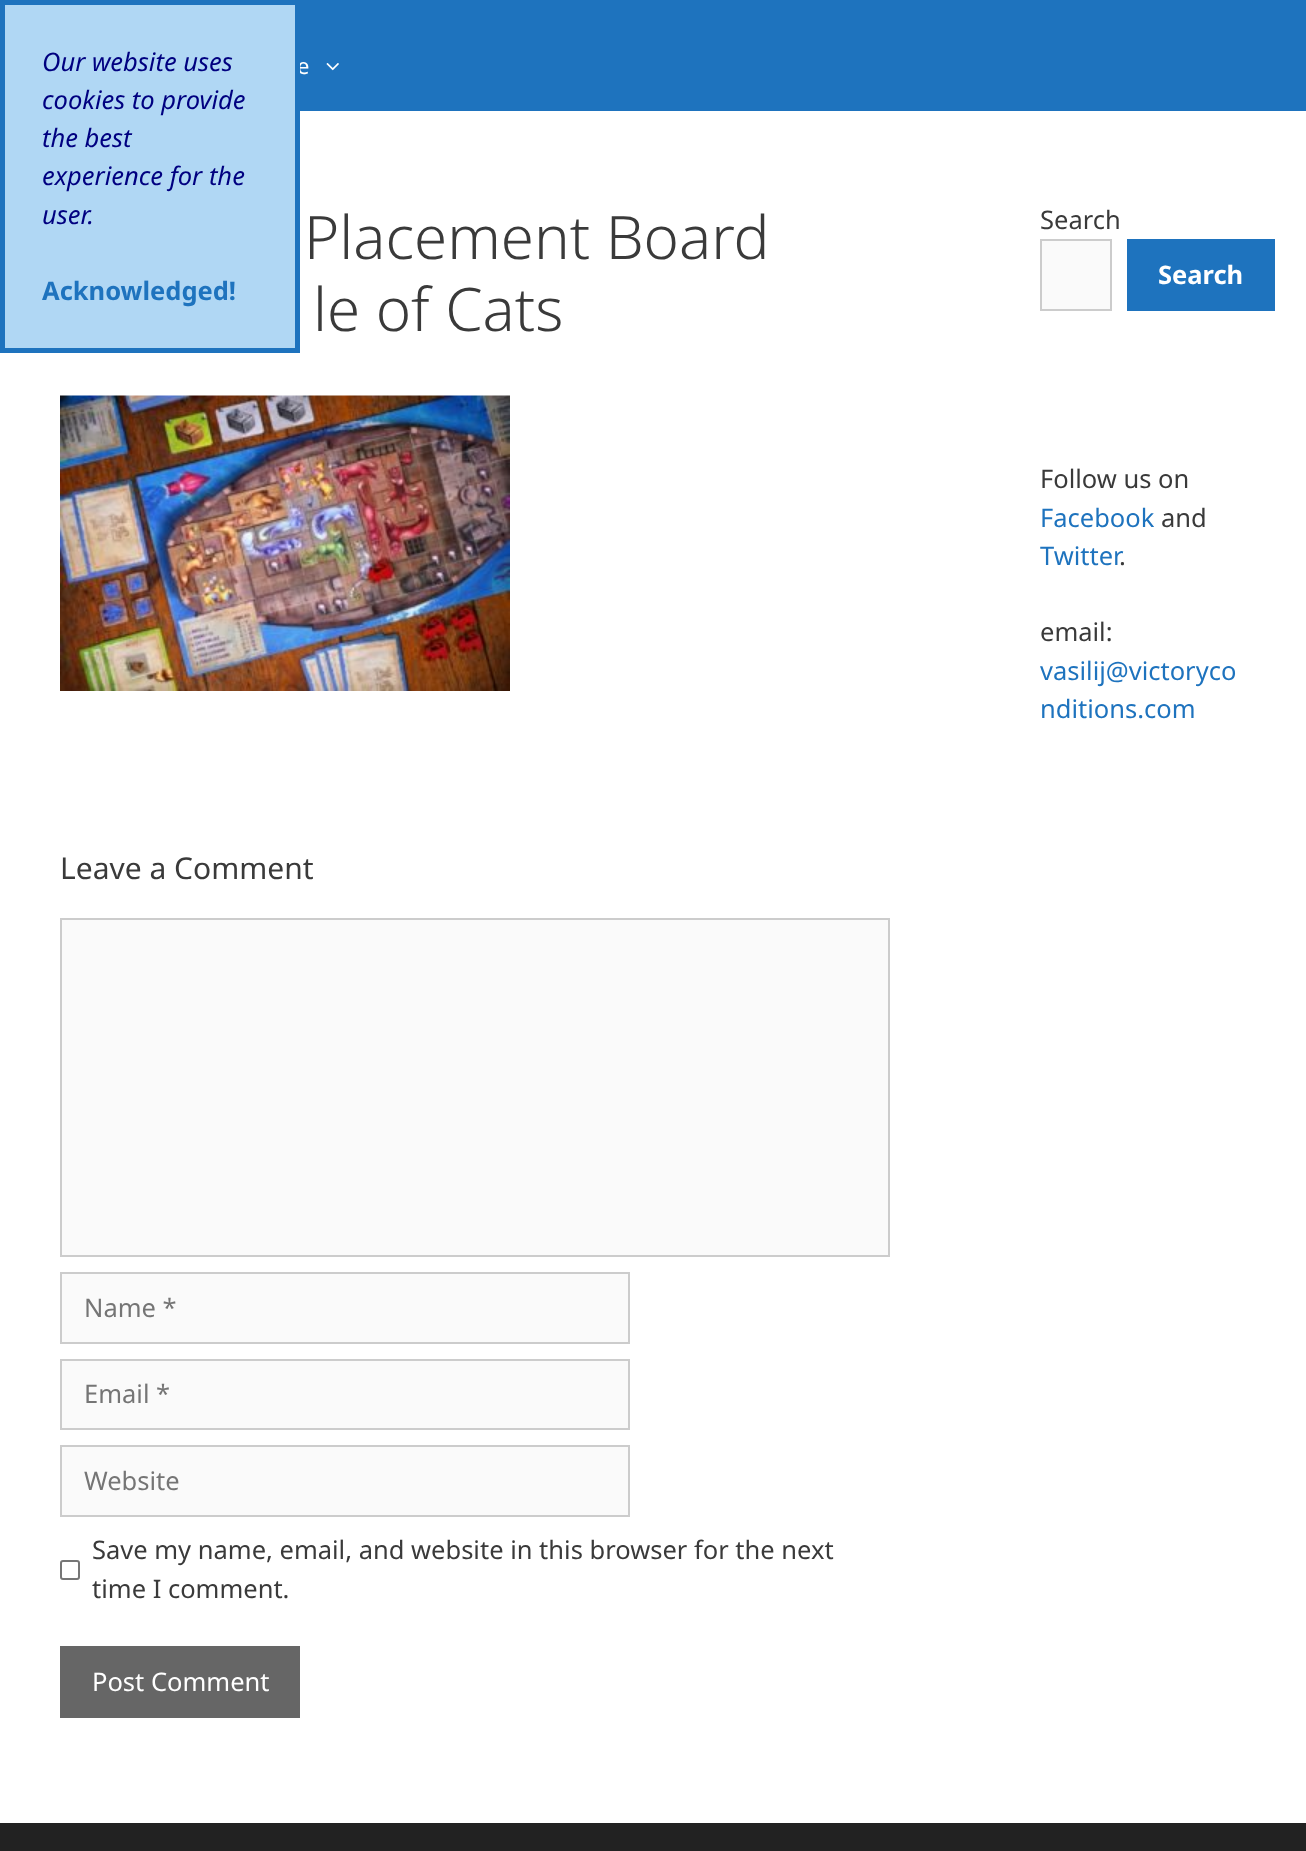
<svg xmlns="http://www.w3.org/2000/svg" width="1306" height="1851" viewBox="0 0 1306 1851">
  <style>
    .t1 { font: 22px Noto Sans; fill: #fff; }
    .t2 { font: italic 25.5px Noto Sans; fill: #000080; }
    .t3 { font: bold 25.5px Noto Sans; fill: #1e73be; }
    .t4 { font: 300 60px Noto Sans; fill: #3a3a3a; }
    .t5 { font: 30px Noto Sans; fill: #3a3a3a; }
    .t6 { font: 25.5px Noto Sans; fill: #757575; }
    .t7 { font: 25.5px Noto Sans; fill: #3a3a3a; }
    .t8 { font: 25.5px Noto Sans; fill: #fff; }
    .t9 { font: bold 25.5px Noto Sans; fill: #fff; }
    .t10 { font: 25.5px Noto Sans; fill: #1e73be; }
  </style>
  <rect width="100%" height="100%" fill="#fff"/>
  <rect x="300" y="0" width="1006" height="111" fill="#1e73be"/>
  <text x="297" y="74" class="t1">e</text>
  <rect x="2.5" y="2.5" width="295" height="348" fill="#b0d7f4" stroke="#1e73be" stroke-width="5"/>
  <text x="42" y="71" class="t2">Our website uses</text>
  <text x="42" y="109" class="t2">cookies to provide</text>
  <text x="42" y="147" class="t2">the best</text>
  <text x="42" y="185" class="t2">experience for the</text>
  <text x="42" y="224" class="t2">user.</text>
  <text x="42" y="300" class="t3">Acknowledged!</text>
  <image x="326" y="63" width="13" height="8" href="images/1.png"/>
  <text x="304" y="259" class="t4">Placement Board</text>
  <text x="313" y="331" class="t4">le of Cats</text>
  <image x="60" y="395" width="450" height="296" href="images/2.png"/>
  <text x="60" y="879" class="t5">Leave a Comment</text>
  <rect x="61" y="919" width="828" height="337" fill="#fafafa" stroke="#ccc" stroke-width="2"/>
  <rect x="61" y="1273" width="568" height="70" fill="#fafafa" stroke="#ccc" stroke-width="2"/>
  <text x="84" y="1317" class="t6">Name *</text>
  <rect x="61" y="1360" width="568" height="69" fill="#fafafa" stroke="#ccc" stroke-width="2"/>
  <text x="84" y="1403" class="t6">Email *</text>
  <rect x="61" y="1446" width="568" height="70" fill="#fafafa" stroke="#ccc" stroke-width="2"/>
  <text x="84" y="1490" class="t6">Website</text>
  <rect x="61" y="1561" width="18" height="18" rx="2" fill="none" stroke="#767676" stroke-width="2"/>
  <text x="92" y="1559" class="t7">Save my name, email, and website in this browser for the next</text>
  <text x="92" y="1598" class="t7">time I comment.</text>
  <rect x="60" y="1646" width="240" height="72" fill="#666"/>
  <text x="92" y="1691" class="t8">Post Comment</text>
  <text x="1040" y="229" class="t7">Search</text>
  <rect x="1041" y="240" width="70" height="70" fill="#fafafa" stroke="#ccc" stroke-width="2"/>
  <rect x="1127" y="239" width="148" height="72" fill="#1e73be"/>
  <text x="1158" y="284" class="t9">Search</text>
  <text x="1040" y="488" class="t7">Follow us on</text>
  <text x="1040" y="527" class="t10">Facebook</text>
  <text x="1161" y="527" class="t7">and</text>
  <text x="1040" y="565" class="t10">Twitter</text>
  <text x="1119" y="565" class="t7">.</text>
  <text x="1040" y="641" class="t7">email:</text>
  <text x="1040" y="680" class="t10">vasilij@victoryco</text>
  <text x="1040" y="718" class="t10">nditions.com</text>
  <rect x="0" y="1823" width="1306" height="28" fill="#222"/>
</svg>
